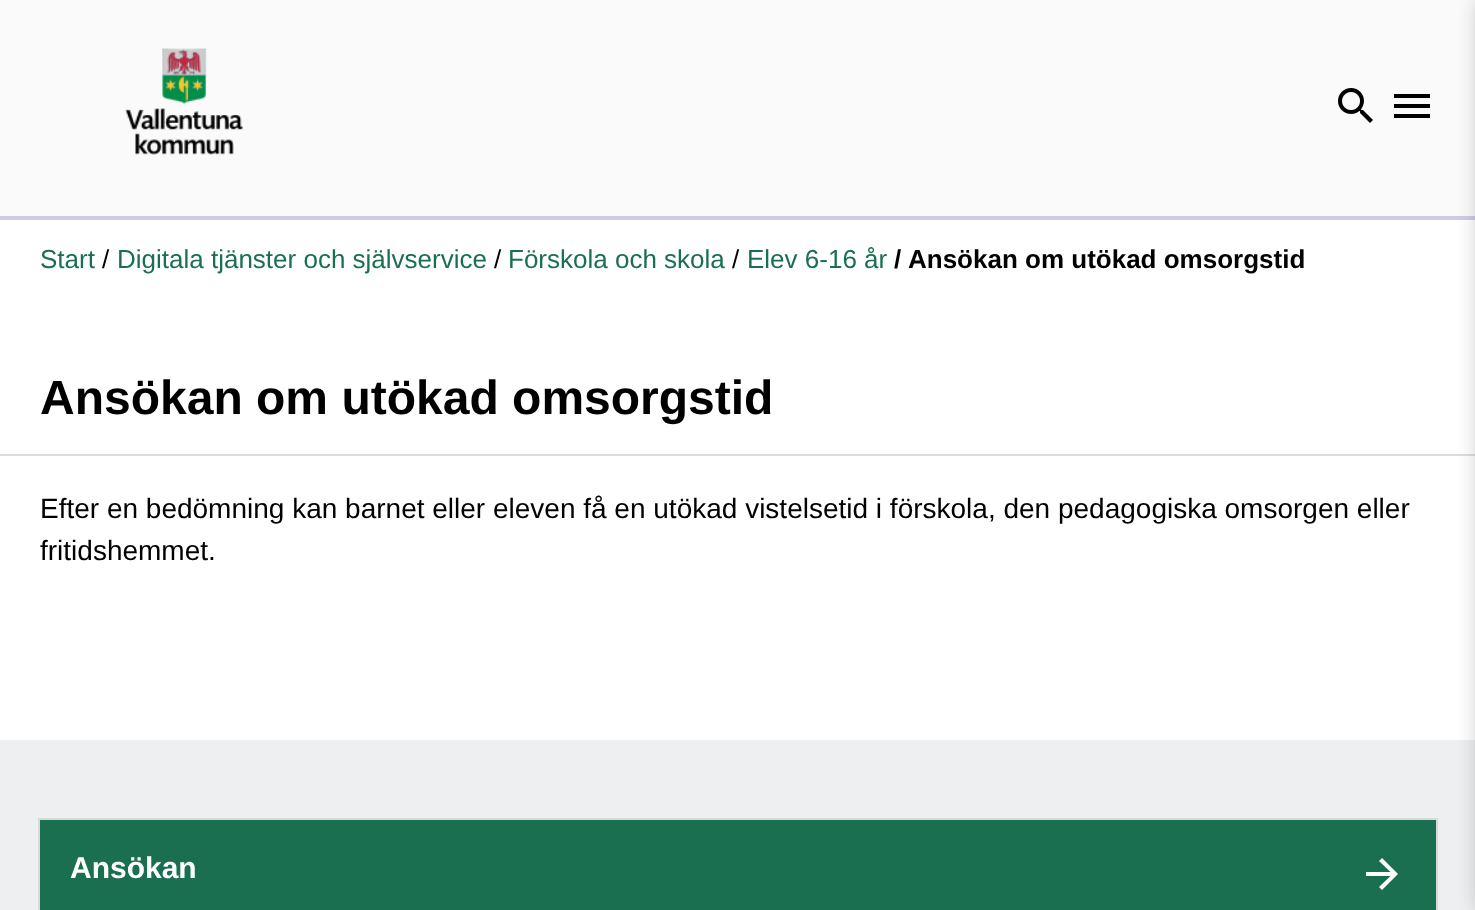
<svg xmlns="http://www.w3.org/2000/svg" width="1475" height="910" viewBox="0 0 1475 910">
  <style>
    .t1 { font: 26px Liberation Sans; fill: #1a6f51; }
    .t2 { font: 26px Liberation Sans; fill: #000; }
    .t3 { font: bold 26px Liberation Sans; fill: #000; }
    .t4 { font: bold 48px Liberation Sans; fill: #000; }
    .t5 { font: 28px Liberation Sans; fill: #000; }
    .t6 { font: bold 30px Liberation Sans; fill: #fff; }
  </style>
  <rect width="100%" height="100%" fill="#fff"/>
  <rect x="0" y="0" width="1475" height="216" fill="#fafafa"/>
  <rect x="0" y="216" width="1475" height="4" fill="#cfcbe4"/>
  <image x="125" y="48" width="118" height="107" href="images/1.png"/>
  <image x="1338" y="88" width="35" height="35" href="images/2.png"/>
  <path d="M1394 94H1430V98H1394ZM1394 108V104H1430V108ZM1394 118V114H1430V118Z" fill="#000"/>
  <text x="40" y="268" class="t1">Start</text>
  <text x="102" y="268" class="t2">/</text>
  <text x="117" y="268" class="t1">Digitala tjänster och självservice</text>
  <text x="494" y="268" class="t2">/</text>
  <text x="508" y="268" class="t1">Förskola och skola</text>
  <text x="732" y="268" class="t2">/</text>
  <text x="747" y="268" class="t1">Elev 6-16 år</text>
  <text x="894" y="268" class="t3">/</text>
  <text x="908" y="268" class="t3">Ansökan om utökad omsorgstid</text>
  <rect x="0" y="454" width="1475" height="2" fill="#ddd"/>
  <text x="40" y="414" class="t4">Ansökan om utökad omsorgstid</text>
  <text x="40" y="518" class="t5">Efter en bedömning kan barnet eller eleven få en utökad vistelsetid i förskola, den pedagogiska omsorgen eller</text>
  <text x="40" y="560" class="t5">fritidshemmet.</text>
  <rect x="0" y="740" width="1475" height="170" fill="#edeff0"/>
  <rect x="39" y="819" width="1398" height="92" fill="none" stroke="#d7d9da" stroke-width="2"/>
  <rect x="40" y="820" width="1396" height="90" fill="#1a6f51"/>
  <text x="70" y="878" class="t6">Ansökan</text>
  <path d="M1382 858L1398 874L1382 890L1379 887L1390.5 876H1366V872H1390.5L1379 861Z" fill="#fff"/>
  <rect x="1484" y="0" width="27" height="910" fill="#00000066" filter="blur(12px)"/>
</svg>
